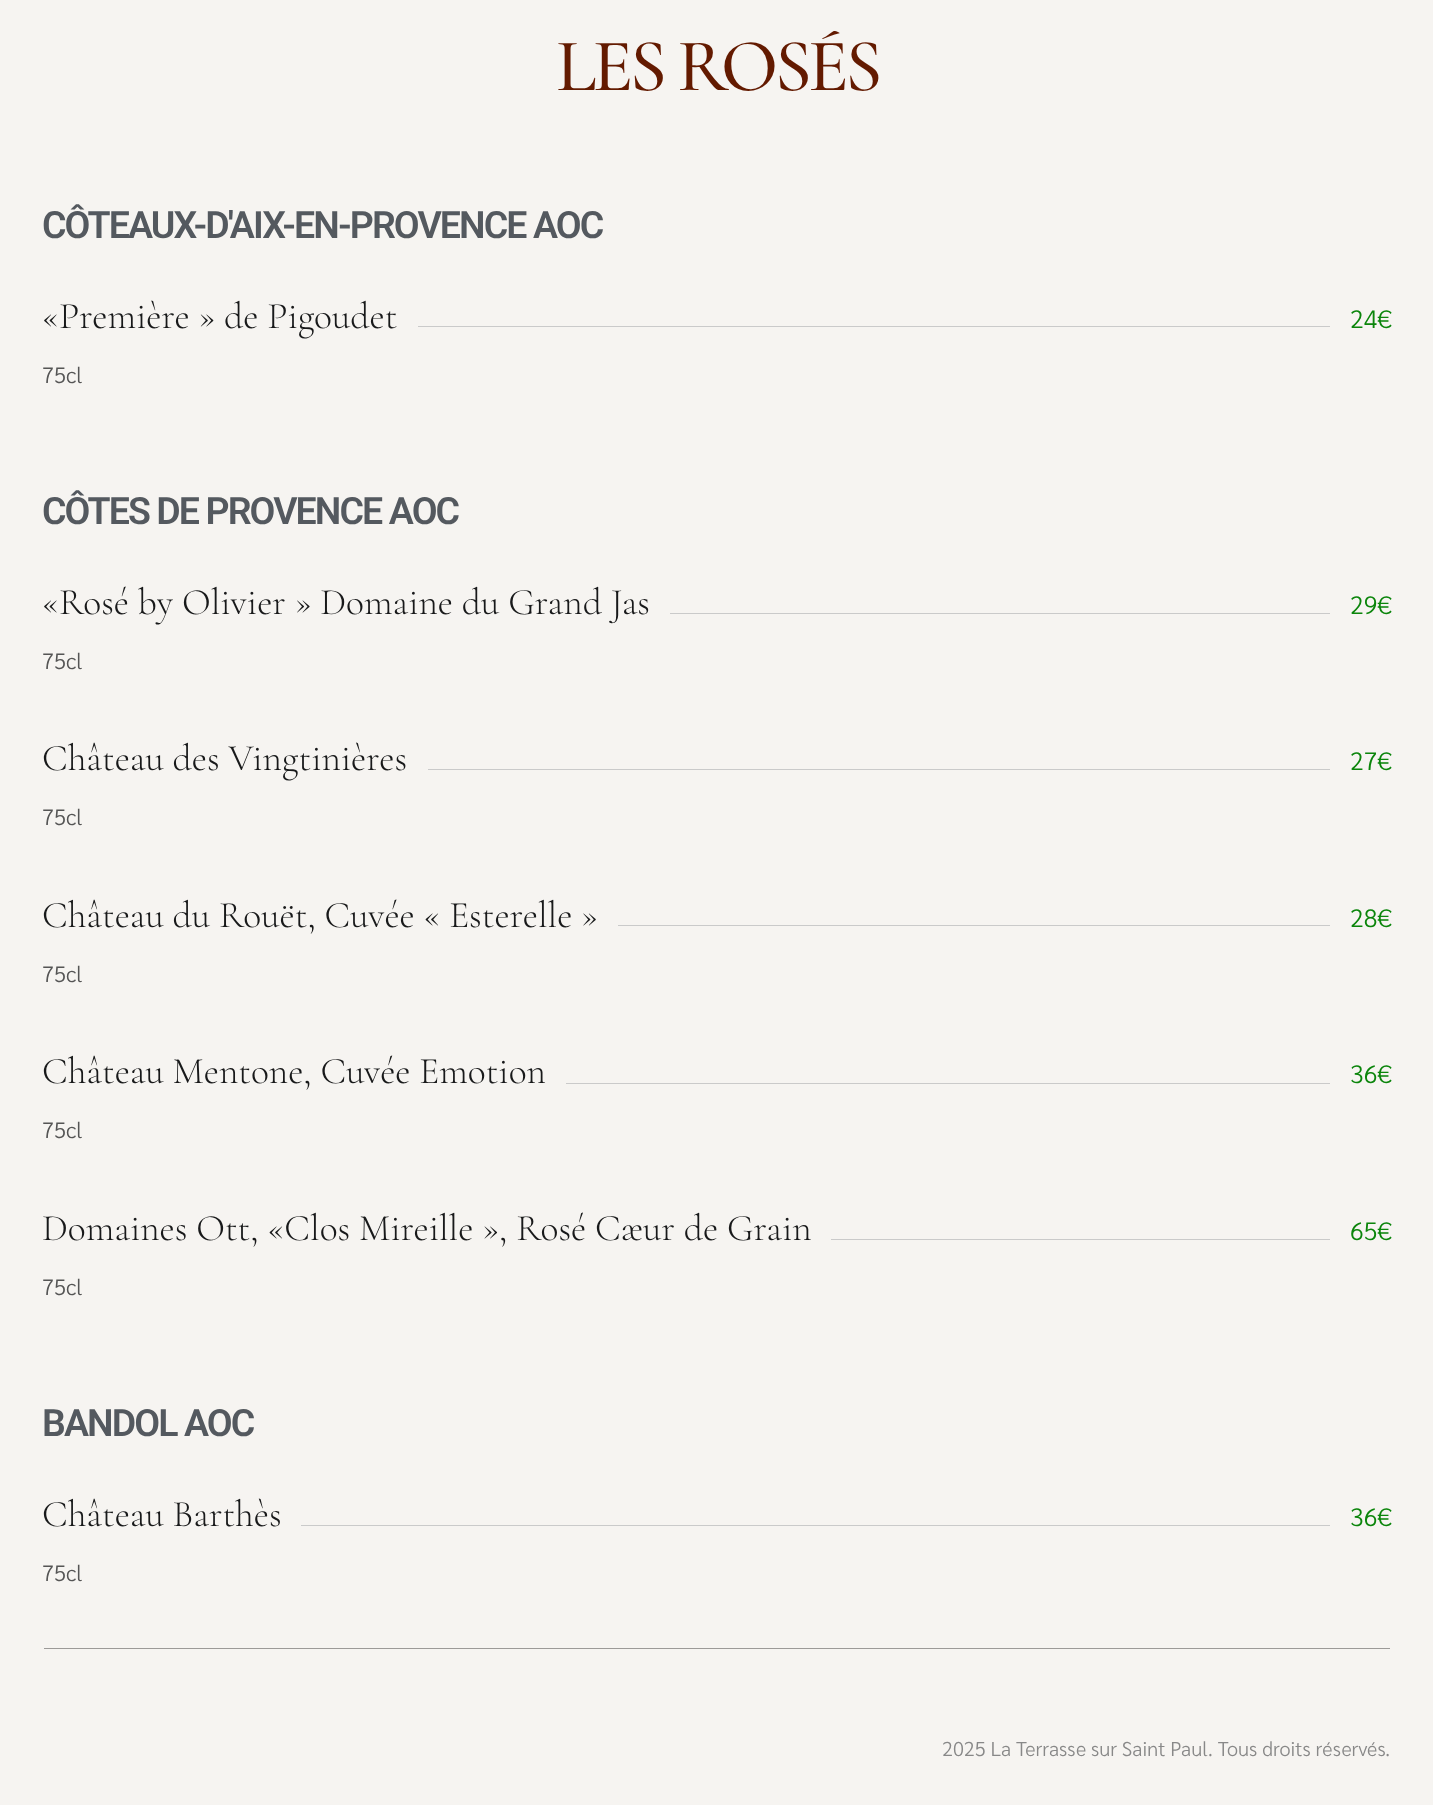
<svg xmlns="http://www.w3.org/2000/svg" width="1433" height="1805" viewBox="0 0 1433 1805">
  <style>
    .t1 { font: 500 75px Cormorant Garamond; letter-spacing: -3.75px; fill: #631a00; }
    .t2 { font: 600 37.5px Roboto; letter-spacing: -1.9px; fill: #54595f; }
    .t3 { font: 300 37.5px Cormorant Garamond; fill: #18191a; }
    .t4 { font: 300 25px Sarabun; fill: #0b850b; }
    .t5 { font: 300 22px Sarabun; fill: #555; }
    .t6 { font: 300 20px Sarabun; fill: #888; }
  </style>
  <rect width="100%" height="100%" fill="#f6f4f1"/>
  <text x="556" y="90" class="t1">LES ROSÉS</text>
  <text x="42" y="238" class="t2">CÔTEAUX-D'AIX-EN-PROVENCE AOC</text>
  <text x="42" y="328" class="t3">«Première » de Pigoudet</text>
  <rect x="418" y="326" width="912" height="1" fill="#cacaca"/>
  <text x="1350" y="328" class="t4">24€</text>
  <text x="42" y="383" class="t5">75cl</text>
  <text x="42" y="524" class="t2">CÔTES DE PROVENCE AOC</text>
  <text x="42" y="614" class="t3">«Rosé by Olivier » Domaine du Grand Jas</text>
  <rect x="670" y="613" width="660" height="1" fill="#cacaca"/>
  <text x="1350" y="614" class="t4">29€</text>
  <text x="42" y="669" class="t5">75cl</text>
  <text x="42" y="770" class="t3">Château des Vingtinières</text>
  <rect x="428" y="769" width="902" height="1" fill="#cacaca"/>
  <text x="1350" y="770" class="t4">27€</text>
  <text x="42" y="825" class="t5">75cl</text>
  <text x="42" y="927" class="t3">Château du Rouët, Cuvée « Esterelle »</text>
  <rect x="618" y="925" width="712" height="1" fill="#cacaca"/>
  <text x="1350" y="927" class="t4">28€</text>
  <text x="42" y="982" class="t5">75cl</text>
  <text x="42" y="1083" class="t3">Château Mentone, Cuvée Emotion</text>
  <rect x="566" y="1083" width="764" height="1" fill="#cacaca"/>
  <text x="1350" y="1083" class="t4">36€</text>
  <text x="42" y="1138" class="t5">75cl</text>
  <text x="42" y="1240" class="t3">Domaines Ott, «Clos Mireille », Rosé Cæur de Grain</text>
  <rect x="831" y="1239" width="499" height="1" fill="#cacaca"/>
  <text x="1350" y="1240" class="t4">65€</text>
  <text x="42" y="1295" class="t5">75cl</text>
  <text x="42" y="1436" class="t2">BANDOL AOC</text>
  <text x="42" y="1526" class="t3">Château Barthès</text>
  <rect x="301" y="1525" width="1029" height="1" fill="#cacaca"/>
  <text x="1350" y="1526" class="t4">36€</text>
  <text x="42" y="1581" class="t5">75cl</text>
  <rect x="44" y="1648" width="1346" height="1" fill="#9c9a98"/>
  <text x="942" y="1756" class="t6">2025 La Terrasse sur Saint Paul. Tous droits réservés.</text>
</svg>
